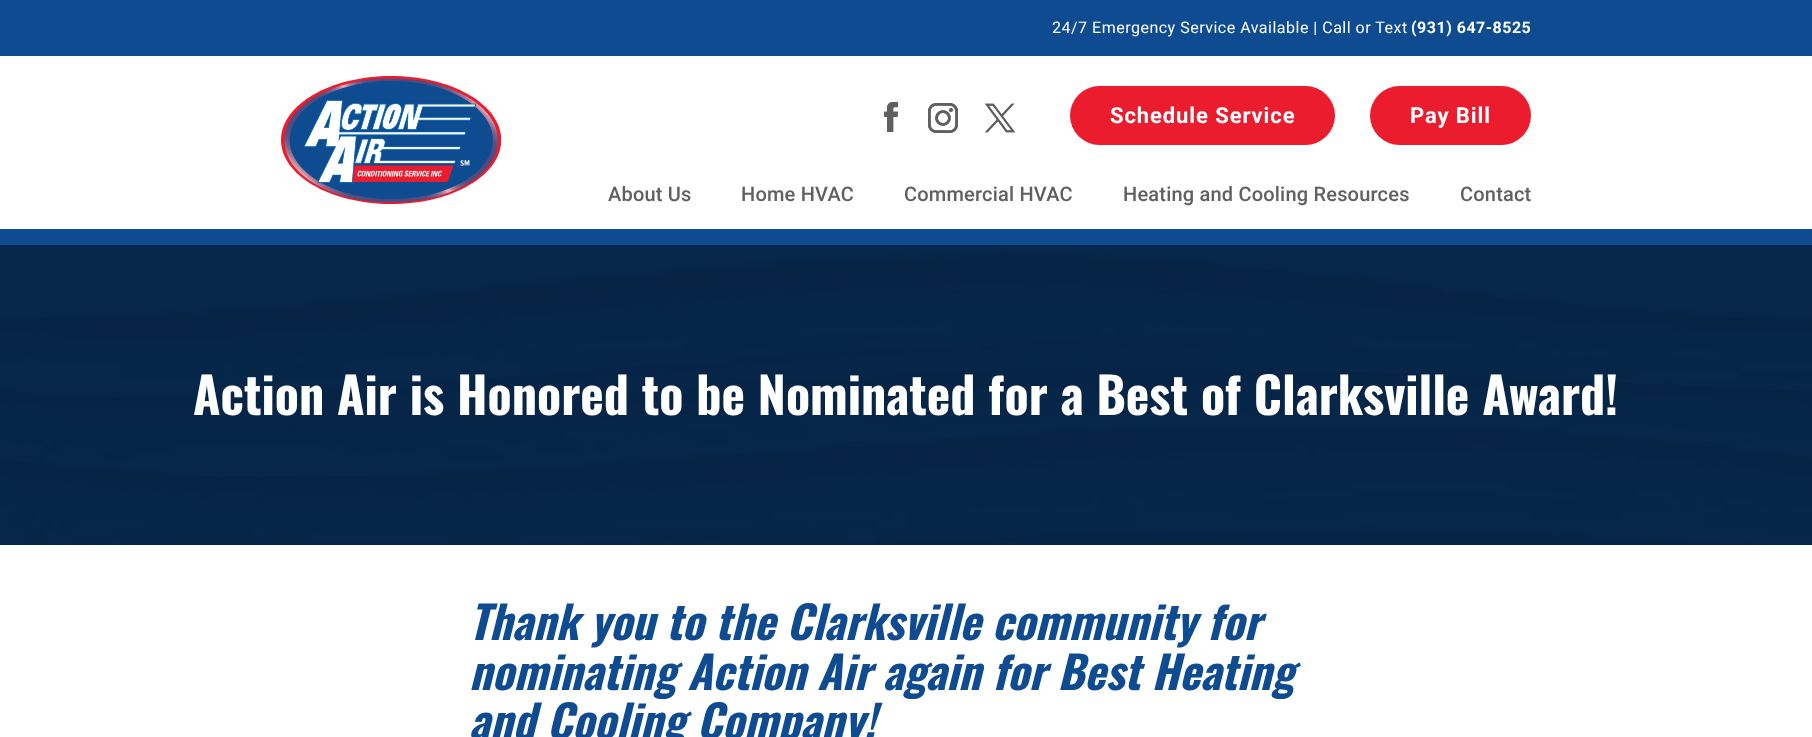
<svg xmlns="http://www.w3.org/2000/svg" width="1812" height="737" viewBox="0 0 1812 737">
  <style>
    .t1 { font: 16px Roboto; letter-spacing: 0.5px; fill: #fff; }
    .t2 { font: bold 16px Roboto; letter-spacing: 0.5px; fill: #fff; }
    .t3 { font: bold 22px Roboto; letter-spacing: 0.9px; fill: #fff; }
    .t4 { font: 500 20px Roboto; letter-spacing: 0.2px; fill: #606060; }
    .t5 { font: bold 50px Oswald; fill: #fff; }
    .t6 { font: italic bold 45px Oswald; fill: #0f4b91; }
  </style>
  <rect width="100%" height="100%" fill="#fff"/>
  <rect x="0" y="229" width="1812" height="16" fill="#0f4b91"/>
  <rect x="0" y="0" width="1812" height="56" fill="#0f4b91"/>
  <text x="1052" y="33" class="t1">24/7 Emergency Service Available | Call or Text</text>
  <text x="1411" y="33" class="t2">(931) 647-8525</text>
  <image x="281" y="76" width="220" height="128" href="images/1.png"/>
  <image x="884" y="102" width="14" height="30" href="images/2.png"/>
  <image x="884" y="102" width="14" height="30" href="images/3.png"/>
  <image x="928" y="103" width="30" height="30" href="images/4.png"/>
  <image x="928" y="103" width="30" height="30" href="images/5.png"/>
  <image x="985" y="103" width="30" height="30" href="images/6.png"/>
  <image x="985" y="103" width="30" height="30" href="images/7.png"/>
  <rect x="1070" y="86" width="265" height="59" rx="29.5" fill="#eb1c2d"/>
  <text x="1110" y="123" class="t3">Schedule Service</text>
  <rect x="1370" y="86" width="161" height="59" rx="29.5" fill="#eb1c2d"/>
  <text x="1410" y="123" class="t3">Pay Bill</text>
  <text x="608" y="201" class="t4">About Us</text>
  <text x="741" y="201" class="t4">Home HVAC</text>
  <text x="904" y="201" class="t4">Commercial HVAC</text>
  <text x="1123" y="201" class="t4">Heating and Cooling Resources</text>
  <text x="1460" y="201" class="t4">Contact</text>
  <image x="0" y="245" width="1812" height="300" href="images/8.png"/>
  <text x="193" y="415" class="t5">Action Air is Honored to be Nominated for a Best of Clarksville Award!</text>
  <text x="469" y="640" class="t6">Thank you to the Clarksville community for</text>
  <text x="469" y="690" class="t6">nominating Action Air again for Best Heating</text>
  <text x="469" y="739" class="t6">and Cooling Company!</text>
</svg>
